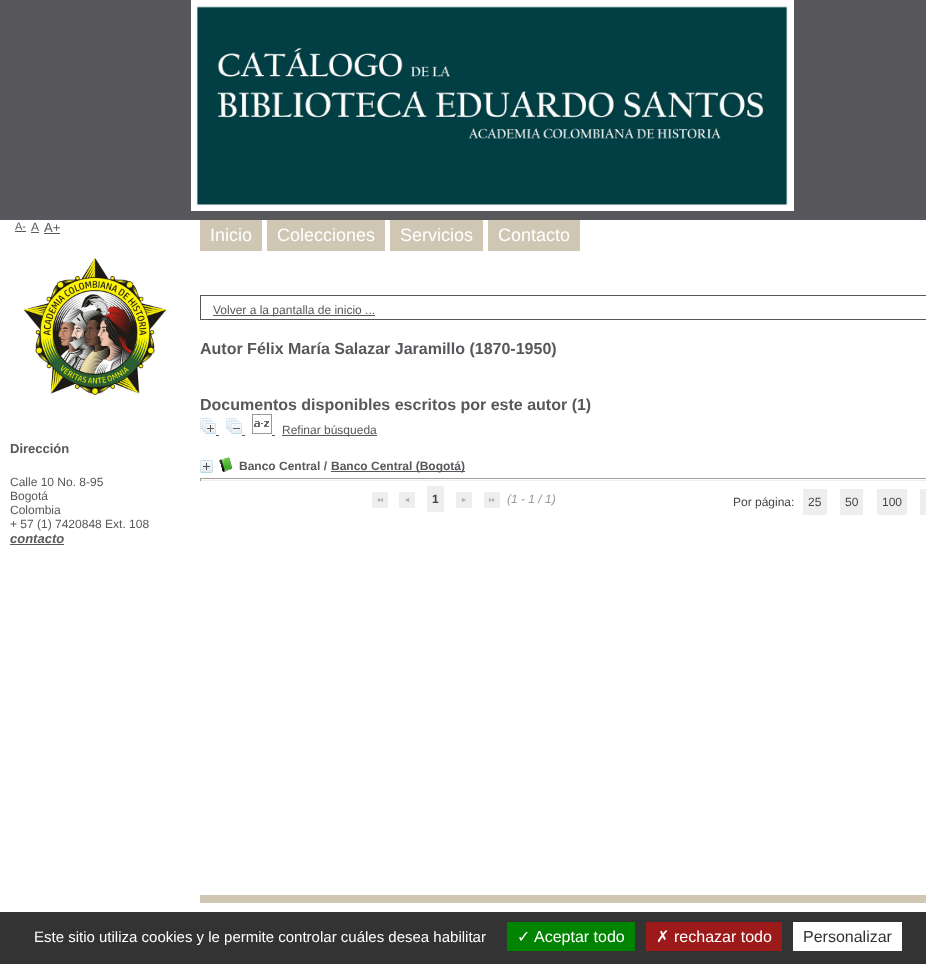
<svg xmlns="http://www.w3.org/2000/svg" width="926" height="964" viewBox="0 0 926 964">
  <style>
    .t1 { font: 11px Liberation Sans; fill: #58585c; }
    .t2 { font: 12px Liberation Sans; fill: #58585c; }
    .t3 { font: 13px Liberation Sans; fill: #58585c; }
    .t4 { font: bold 13px Liberation Sans; fill: #58585c; }
    .t5 { font: italic bold 13px Liberation Sans; fill: #58585c; }
    .t6 { font: 18px Liberation Sans; fill: #fff; }
    .t7 { font: bold 16px Liberation Sans; fill: #58585c; }
    .t8 { font: bold 12px Liberation Sans; fill: #58585c; }
    .t9 { font: bold 12px Liberation Sans; fill: #444; }
    .t10 { font: italic 12px Liberation Sans; fill: #999; }
    .t11 { font: 12px Liberation Sans; fill: #444; }
    .t12 { font: 15px Liberation Sans; fill: #fff; }
    .t13 { font: 16px DejaVu Sans; fill: #fff; }
    .t14 { font: 16px Liberation Sans; fill: #fff; }
    .t15 { font: 16px Liberation Sans; fill: #333; }
  </style>
  <rect width="100%" height="100%" fill="#fff"/>
  <text x="15" y="230" class="t1">A-</text>
  <rect x="15" y="231" width="11" height="1" fill="#58585c"/>
  <text x="31" y="231" class="t2">A</text>
  <rect x="31" y="232" width="8" height="1" fill="#58585c"/>
  <text x="44" y="232" class="t3">A+</text>
  <rect x="44" y="233" width="16" height="1" fill="#58585c"/>
  <image x="23" y="258" width="144" height="137" href="images/1.png"/>
  <text x="10" y="453" class="t4">Dirección</text>
  <text x="10" y="486" class="t2">Calle 10 No. 8-95</text>
  <text x="10" y="500" class="t2">Bogotá</text>
  <text x="10" y="514" class="t2">Colombia</text>
  <text x="10" y="528" class="t2">+ 57 (1) 7420848 Ext. 108</text>
  <text x="10" y="543" class="t5">contacto</text>
  <rect x="10" y="544" width="54" height="1" fill="#58585c"/>
  <rect x="0" y="0" width="926" height="220" fill="#58585c"/>
  <image x="191" y="0" width="603" height="211" href="images/2.png"/>
  <rect x="200" y="220" width="62" height="31" fill="#d0c6b4"/>
  <text x="210" y="241" class="t6">Inicio</text>
  <rect x="267" y="220" width="118" height="31" fill="#d0c6b4"/>
  <text x="277" y="241" class="t6">Colecciones</text>
  <rect x="390" y="220" width="93" height="31" fill="#d0c6b4"/>
  <text x="400" y="241" class="t6">Servicios</text>
  <rect x="488" y="220" width="92" height="31" fill="#d0c6b4"/>
  <text x="498" y="241" class="t6">Contacto</text>
  <rect x="200.5" y="295.5" width="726" height="24" fill="none" stroke="#58585c"/>
  <rect x="213" y="315" width="162" height="1" fill="#58585c"/>
  <text x="213" y="314" class="t2">Volver a la pantalla de inicio ...</text>
  <text x="200" y="354" class="t7">Autor Félix María Salazar Jaramillo (1870-1950)</text>
  <text x="200" y="410" class="t7">Documentos disponibles escritos por este autor (1)</text>
  <image x="200" y="418" width="16" height="16" href="images/3.png"/>
  <rect x="216" y="435" width="3" height="1" fill="#58585c"/>
  <image x="226" y="418" width="16" height="16" href="images/4.png"/>
  <rect x="242" y="435" width="3" height="1" fill="#58585c"/>
  <image x="252" y="414" width="20" height="20" href="images/5.png"/>
  <rect x="272" y="435" width="3" height="1" fill="#58585c"/>
  <rect x="282" y="435" width="95" height="1" fill="#58585c"/>
  <text x="282" y="434" class="t2">Refinar búsqueda</text>
  <image x="200" y="460" width="13" height="13" href="images/6.png"/>
  <image x="219" y="457" width="13" height="15" href="images/7.png"/>
  <text x="239" y="470" class="t8">Banco Central /</text>
  <rect x="331" y="471" width="134" height="1" fill="#58585c"/>
  <text x="331" y="470" class="t8">Banco Central (Bogotá)</text>
  <rect x="200" y="478" width="726" height="1" fill="#9f9f9f"/>
  <rect x="200" y="480" width="726" height="1" fill="#eee"/>
  <rect x="200" y="478" width="1" height="3" fill="#9f9f9f"/>
  <rect x="372" y="492" width="16" height="16" fill="#eee"/>
  <image x="377" y="498" width="6" height="5" href="images/8.png"/>
  <rect x="399" y="492" width="16" height="16" fill="#eee"/>
  <image x="405" y="498" width="5" height="5" href="images/9.png"/>
  <rect x="427" y="486" width="17" height="26" fill="#eee"/>
  <text x="432" y="503" class="t9">1</text>
  <rect x="456" y="492" width="16" height="16" fill="#eee"/>
  <image x="461" y="498" width="5" height="5" href="images/10.png"/>
  <rect x="484" y="492" width="16" height="16" fill="#eee"/>
  <image x="489" y="498" width="6" height="5" href="images/11.png"/>
  <text x="507" y="503" class="t10">(1 - 1 / 1)</text>
  <text x="733" y="506" class="t11">Por página:</text>
  <rect x="803" y="489" width="24" height="26" fill="#eee"/>
  <text x="808" y="506" class="t11">25</text>
  <rect x="840" y="489" width="23" height="26" fill="#eee"/>
  <text x="845" y="506" class="t11">50</text>
  <rect x="877" y="489" width="30" height="26" fill="#eee"/>
  <text x="882" y="506" class="t11">100</text>
  <rect x="920" y="489" width="6" height="26" fill="#eee"/>
  <rect x="200" y="895" width="726" height="8" fill="#d0c6b4"/>
  <rect x="0" y="912" width="926" height="52" fill="#333"/>
  <text x="34" y="942" class="t12">Este sitio utiliza cookies y le permite controlar cuáles desea habilitar</text>
  <rect x="507" y="922" width="128" height="29" fill="#008300"/>
  <text x="517" y="942" class="t13">✓</text>
  <text x="534" y="942" class="t14">Aceptar todo</text>
  <rect x="646" y="922" width="136" height="29" fill="#9c1a1a"/>
  <text x="656" y="942" class="t13">✗</text>
  <text x="674" y="942" class="t14">rechazar todo</text>
  <rect x="793" y="922" width="109" height="29" fill="#fff"/>
  <text x="803" y="942" class="t15">Personalizar</text>
</svg>
